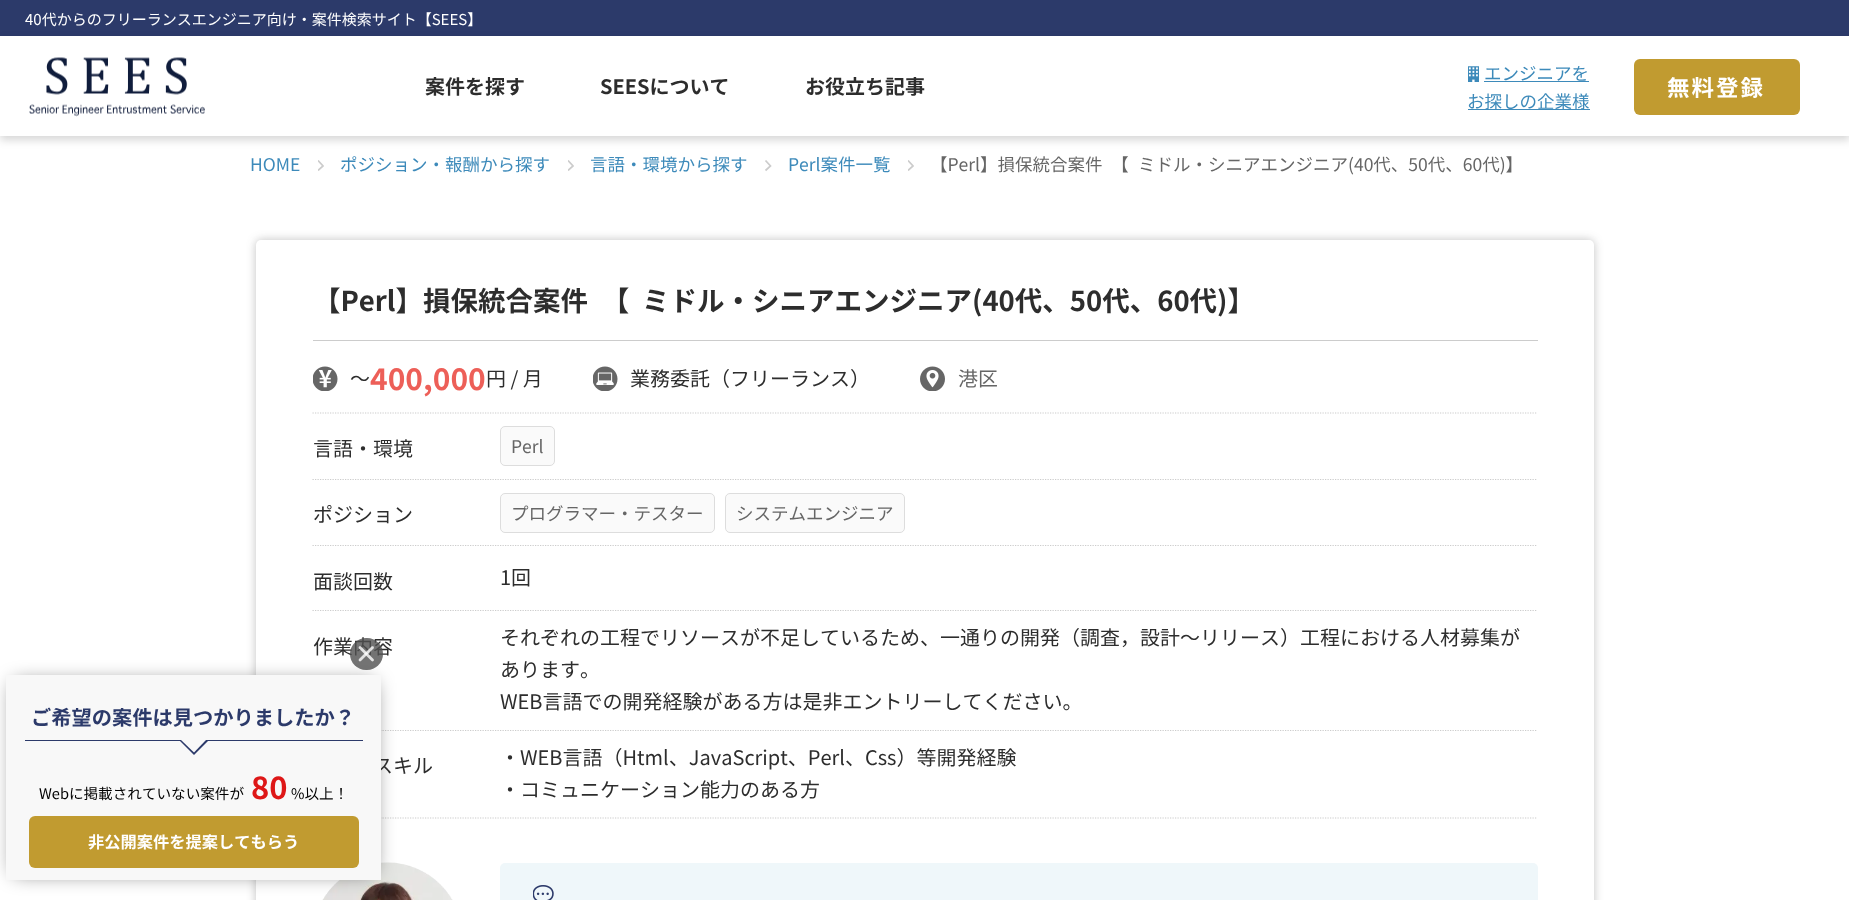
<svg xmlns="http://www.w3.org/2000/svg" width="1849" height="900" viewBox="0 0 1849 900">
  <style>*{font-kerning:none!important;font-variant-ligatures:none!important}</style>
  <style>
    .t1 { font: 15px Noto Sans JP; fill: #fff; }
    .t2 { font: bold 20px Noto Sans JP; fill: #2d2d2d; }
    .t3 { font: 17.5px Noto Sans JP; fill: #3d8aba; }
    .t4 { font: bold 22.5px Noto Sans JP; letter-spacing: 2px; fill: #fff; }
    .t5 { font: 20px Noto Sans JP; fill: #2d2d2d; }
    .t6 { font: bold 20.25px Noto Sans JP; fill: #2c3a6a; }
    .t7 { font: 14.6px Noto Sans JP; fill: #000; }
    .t8 { font: bold 31px Noto Sans JP; fill: #de1717; }
    .t9 { font: bold 16.25px Noto Sans JP; fill: #fff; }
    .t10 { font: 17.5px Noto Sans JP; fill: #666; }
    .t11 { font: bold 27.5px Noto Sans JP; fill: #2d2d2d; }
    .t12 { font: bold 30px Noto Sans JP; fill: #ed5f58; }
    .t13 { font: 20px Noto Sans JP; fill: #666; }
  </style>
  <defs>
    <clipPath id="clip1"><rect x="318" y="160" width="6" height="11"/></clipPath>
    <clipPath id="clip2"><rect x="568" y="160" width="6" height="11"/></clipPath>
    <clipPath id="clip3"><rect x="908" y="160" width="6" height="11"/></clipPath>
  </defs>
  <rect width="100%" height="100%" fill="#fff"/>
  <rect x="0" y="0" width="1849" height="36" fill="#2c3a6a"/>
  <text x="25" y="25" class="t1">40代からのフリーランスエンジニア向け・案件検索サイト【SEES】</text>
  <rect x="0" y="40" width="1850" height="100" fill="#00000029" filter="blur(4px)"/>
  <rect x="0" y="36" width="1849" height="100" fill="#fff"/>
  <image x="29" y="57" width="176" height="60" href="images/1.png"/>
  <text x="425" y="94" class="t2">案件を探す</text>
  <text x="600" y="94" class="t2">SEESについて</text>
  <text x="805" y="94" class="t2">お役立ち記事</text>
  <image x="1468" y="66" width="11" height="16" href="images/2.png"/>
  <text x="1484" y="80" class="t3">エンジニアを</text>
  <rect x="1484" y="81" width="105" height="1" fill="#3d8aba"/>
  <rect x="1468" y="109" width="122" height="1" fill="#3d8aba"/>
  <text x="1467" y="108" class="t3">お探しの企業様</text>
  <rect x="1634" y="59" width="166" height="56" rx="6" fill="#c19b30"/>
  <text x="1667" y="96" class="t4">無料登録</text>
  <rect x="256" y="240" width="1338" height="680" rx="5" fill="#3333334d" filter="blur(5px)"/>
  <rect x="256" y="240" width="1338" height="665" rx="5" fill="#fff"/>
  <path d="M312.5 730.5H1537.5" fill="none" stroke="#ccc" stroke-width="1.2" stroke-dasharray="1.25 1.25"/>
  <path d="M312.5 818H1537.5" fill="none" stroke="#ccc" stroke-width="1.2" stroke-dasharray="1.25 1.25"/>
  <image x="322" y="862" width="131" height="38" href="images/6.png"/>
  <rect x="14" y="683" width="360" height="190" fill="#00000099" filter="blur(10px)"/>
  <text x="373" y="773" class="t5">スキル</text>
  <rect x="6" y="675" width="375" height="205" fill="#f8f8f8"/>
  <text x="313" y="654" class="t5">作業内容</text>
  <rect x="350" y="638" width="33" height="32" rx="16" fill="#505050cc"/>
  <path d="M373.5 646.5C374 647 374 648 373.5 648.5L361 661C360.5 661.5 359.5 661.5 359 661C358.5 660.5 358.5 659.5 359 659L371.5 646.5C372 646 373 646 373.5 646.5Z" fill="#ffffffcc"/>
  <path d="M359 646.5C359.5 646 360.5 646 361 646.5L373.5 659C374 659.5 374 660.5 373.5 661C373 661.5 372 661.5 371.5 661L359 648.5C358.5 648 358.5 647 359 646.5Z" fill="#ffffffcc"/>
  <rect x="25" y="740" width="338" height="1" fill="#2c3a6a"/>
  <text x="31" y="725" class="t6">ご希望の案件は見つかりましたか？</text>
  <path d="M179 740H209L194 755Z" fill="#2c3a6a"/>
  <path d="M181 740H206L194 752.5Z" fill="#f8f8f8"/>
  <text x="39" y="799" class="t7">Webに掲載されていない案件が</text>
  <text x="251" y="799" class="t8">80</text>
  <text x="291" y="799" class="t7">%以上！</text>
  <rect x="29" y="816" width="330" height="52" rx="6" fill="#c19b30"/>
  <text x="88" y="848" class="t9">非公開案件を提案してもらう</text>
  <text x="250" y="171" class="t3">HOME</text>
  <g clip-path="url(#clip1)">
    <path d="M318 160.5L323 166L318 170.5" fill="none" stroke="#ccc" stroke-width="1.7"/>
  </g>
  <text x="340" y="171" class="t3">ポジション・報酬から探す</text>
  <g clip-path="url(#clip2)">
    <path d="M568 160.5L573 166L568 170.5" fill="none" stroke="#ccc" stroke-width="1.7"/>
  </g>
  <text x="590" y="171" class="t3">言語・環境から探す</text>
  <path d="M765.5 160.5L770.5 166L765.5 170.5" fill="none" stroke="#ccc" stroke-width="1.7"/>
  <text x="788" y="171" class="t3">Perl案件一覧</text>
  <g clip-path="url(#clip3)">
    <path d="M908 160.5L913 166L908 170.5" fill="none" stroke="#ccc" stroke-width="1.7"/>
  </g>
  <text x="930" y="171" class="t10">【Perl】損保統合案件　【</text>
  <text x="1138" y="171" class="t10">ミドル・シニアエンジニア(40代、50代、60代)】</text>
  <rect x="313" y="340" width="1225" height="1" fill="#ccc"/>
  <text x="313" y="311" class="t11">【Perl】損保統合案件　【</text>
  <text x="642" y="311" class="t11">ミドル・シニアエンジニア(40代、50代、60代)】</text>
  <path d="M312.5 413H1537.5" fill="none" stroke="#ccc" stroke-width="1.2" stroke-dasharray="1.25 1.25"/>
  <image x="313" y="366" width="25" height="25" href="images/3.png"/>
  <text x="350" y="386" class="t5">〜</text>
  <text x="370" y="390" class="t12">400,000</text>
  <text x="486" y="386" class="t5">円 / 月</text>
  <image x="593" y="366" width="25" height="25" href="images/4.png"/>
  <text x="630" y="386" class="t5">業務委託（フリーランス）</text>
  <image x="920" y="366" width="25" height="25" href="images/5.png"/>
  <text x="958" y="386" class="t13">港区</text>
  <path d="M312.5 479.5H1537.5" fill="none" stroke="#ccc" stroke-width="1.2" stroke-dasharray="1.25 1.25"/>
  <text x="313" y="456" class="t5">言語・環境</text>
  <rect x="500.5" y="426.5" width="54" height="39" rx="4.5" fill="#fafafa" stroke="#ddd"/>
  <text x="511" y="453" class="t10">Perl</text>
  <path d="M312.5 545.5H1537.5" fill="none" stroke="#ccc" stroke-width="1.2" stroke-dasharray="1.25 1.25"/>
  <text x="313" y="522" class="t5">ポジション</text>
  <rect x="500.5" y="493.5" width="214" height="39" rx="4.5" fill="#fafafa" stroke="#ddd"/>
  <text x="511" y="520" class="t10">プログラマー・テスター</text>
  <rect x="725.5" y="493.5" width="179" height="39" rx="4.5" fill="#fafafa" stroke="#ddd"/>
  <text x="736" y="520" class="t10">システムエンジニア</text>
  <path d="M312.5 610.5H1537.5" fill="none" stroke="#ccc" stroke-width="1.2" stroke-dasharray="1.25 1.25"/>
  <text x="313" y="589" class="t5">面談回数</text>
  <text x="500" y="585" class="t5">1回</text>
  <text x="500" y="645" class="t5">それぞれの工程でリソースが不足しているため、一通りの開発（調査，設計～リリース）工程における人材募集が</text>
  <text x="500" y="677" class="t5">あります。</text>
  <text x="500" y="709" class="t5">WEB言語での開発経験がある方は是非エントリーしてください。</text>
  <text x="500" y="765" class="t5">・WEB言語（Html、JavaScript、Perl、Css）等開発経験</text>
  <text x="500" y="797" class="t5">・コミュニケーション能力のある方</text>
  <rect x="500" y="863" width="1038" height="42" rx="5" fill="#eff7fa"/>
  <image x="533" y="885" width="21" height="15" href="images/7.png"/>
</svg>
